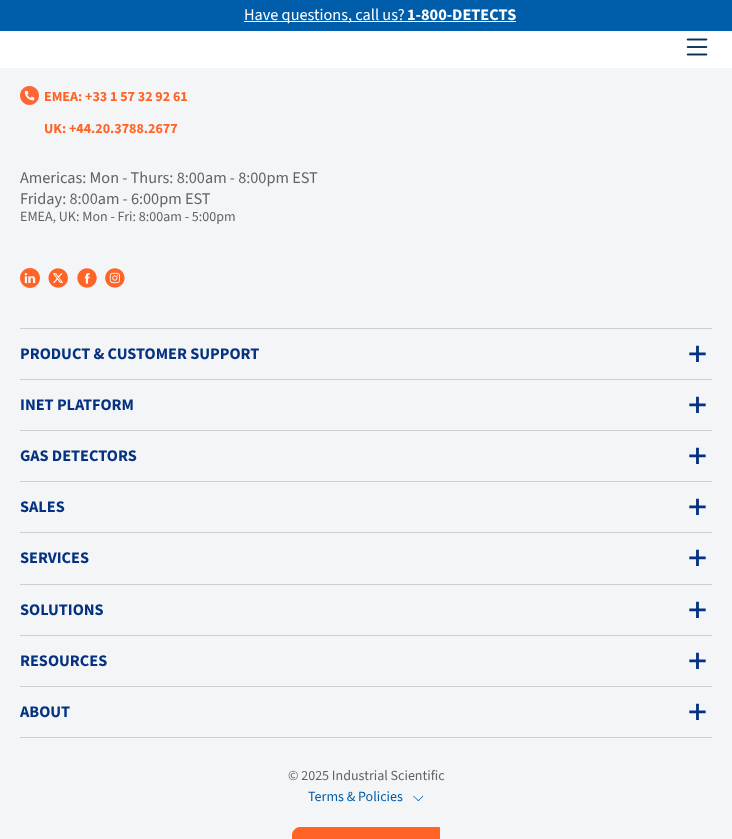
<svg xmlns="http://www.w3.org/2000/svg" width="732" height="839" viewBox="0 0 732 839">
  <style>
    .t1 { font: 16.25px 'Source Sans 3'; fill: #fff; }
    .t2 { font: bold 16.25px 'Source Sans 3'; fill: #fff; }
    .t3 { font: bold 14px 'Source Sans 3'; fill: #ff6326; }
    .t4 { font: 16.25px 'Source Sans 3'; fill: #636363; }
    .t5 { font: 14px 'Source Sans 3'; fill: #636363; }
    .t6 { font: bold 16.25px 'Source Sans 3'; fill: #043281; }
    .t7 { font: bold 30px WenQuanYi Zen Hei; fill: #043281; }
    .t8 { font: 14px 'Source Sans 3'; fill: #005daa; }
    .t9 { font: 14px FreeSerif; fill: #005daa; }
  </style>
  <rect width="100%" height="100%" fill="#fff"/>
  <path d="M351-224C485-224 613-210 732-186V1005H0V-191C111-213 229-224 351-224Z" fill="#f4f5f7"/>
  <rect x="0" y="0" width="732" height="31" fill="#005daa"/>
  <rect x="244" y="21" width="272" height="1" fill="#fff"/>
  <text x="244" y="20" class="t1">Have questions, call us?</text>
  <text x="407" y="20" class="t2">1-800-DETECTS</text>
  <rect x="0" y="31" width="732" height="37" fill="#fff"/>
  <image x="686" y="38" width="22" height="18" href="images/1.png"/>
  <image x="20" y="86" width="19" height="19" href="images/2.png"/>
  <text x="44" y="101" class="t3">EMEA: +33 1 57 32 92 61</text>
  <text x="44" y="133" class="t3">UK: +44.20.3788.2677</text>
  <text x="20" y="183" class="t4">Americas: Mon - Thurs: 8:00am - 8:00pm EST</text>
  <text x="20" y="204" class="t4">Friday: 8:00am - 6:00pm EST</text>
  <text x="20" y="221" class="t5">EMEA, UK: Mon - Fri: 8:00am - 5:00pm</text>
  <image x="20" y="268" width="20" height="20" href="images/3.png"/>
  <image x="48" y="268" width="20" height="20" href="images/4.png"/>
  <image x="77" y="268" width="20" height="20" href="images/5.png"/>
  <image x="105" y="268" width="20" height="20" href="images/6.png"/>
  <rect x="20" y="328" width="692" height="1" fill="#cecfd0"/>
  <text x="20" y="359" class="t6">PRODUCT &amp; CUSTOMER SUPPORT</text>
  <text x="682" y="363" class="t7">＋</text>
  <rect x="20" y="379" width="692" height="1" fill="#cecfd0"/>
  <text x="20" y="410" class="t6">INET PLATFORM</text>
  <text x="682" y="414" class="t7">＋</text>
  <rect x="20" y="430" width="692" height="1" fill="#cecfd0"/>
  <text x="20" y="461" class="t6">GAS DETECTORS</text>
  <text x="682" y="465" class="t7">＋</text>
  <rect x="20" y="481" width="692" height="1" fill="#cecfd0"/>
  <text x="20" y="512" class="t6">SALES</text>
  <text x="682" y="516" class="t7">＋</text>
  <rect x="20" y="532" width="692" height="1" fill="#cecfd0"/>
  <text x="20" y="563" class="t6">SERVICES</text>
  <text x="682" y="567" class="t7">＋</text>
  <rect x="20" y="584" width="692" height="1" fill="#cecfd0"/>
  <text x="20" y="615" class="t6">SOLUTIONS</text>
  <text x="682" y="619" class="t7">＋</text>
  <rect x="20" y="635" width="692" height="1" fill="#cecfd0"/>
  <text x="20" y="666" class="t6">RESOURCES</text>
  <text x="682" y="670" class="t7">＋</text>
  <rect x="20" y="686" width="692" height="1" fill="#cecfd0"/>
  <rect x="20" y="737" width="692" height="1" fill="#cecfd0"/>
  <text x="20" y="717" class="t6">ABOUT</text>
  <text x="682" y="721" class="t7">＋</text>
  <text x="288" y="780" class="t5">© 2025 Industrial Scientific</text>
  <text x="308" y="801" class="t8">Terms &amp; Policies</text>
  <text x="413" y="801" class="t9">⌵</text>
  <path d="M300 827.5H439.5V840C439.5 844 436 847.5 432 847.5H292.5V835C292.5 831 296 827.5 300 827.5Z" fill="#ff6326" stroke="#ff6326"/>
</svg>
